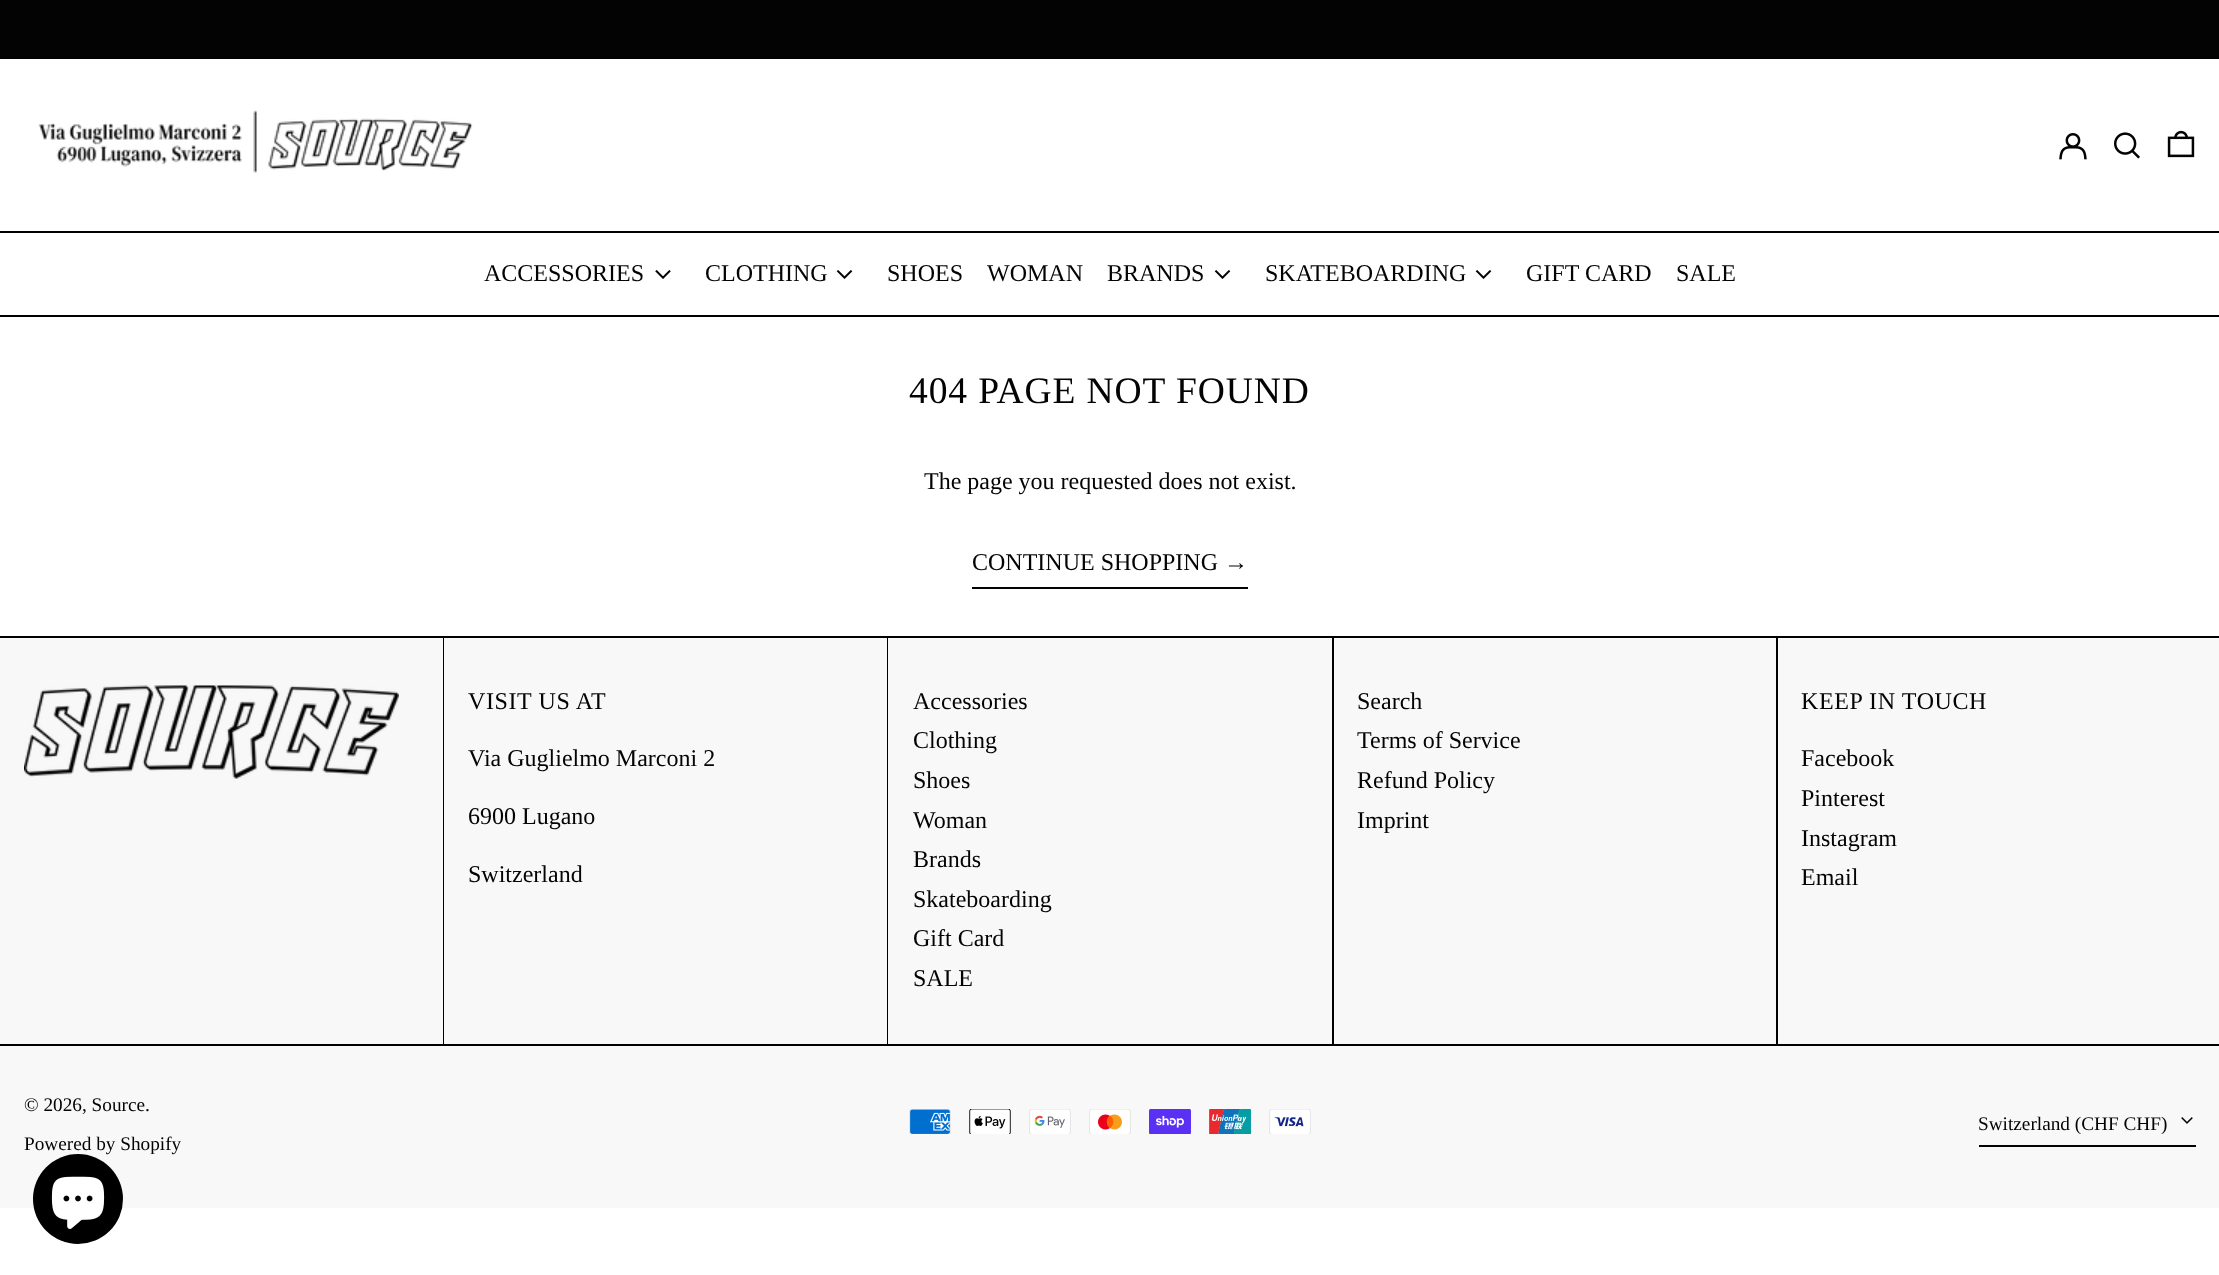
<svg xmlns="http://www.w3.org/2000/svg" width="2219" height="1275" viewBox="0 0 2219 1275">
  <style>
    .t1 { font: 24px Liberation Serif; fill: #030303; }
    .t2 { font: 37.5px Liberation Serif; letter-spacing: 0.9px; fill: #030303; }
    .t3 { font: 24px Liberation Serif; letter-spacing: 0.6px; fill: #030303; }
    .t4 { font: 19.25px Liberation Serif; fill: #030303; }
  </style>
  <rect width="100%" height="100%" fill="#fff"/>
  <rect x="0" y="57" width="2219" height="2" fill="#000"/>
  <rect x="0" y="0" width="2219" height="57" fill="#030303"/>
  <rect x="0" y="315" width="2219" height="2" fill="#000"/>
  <image x="38" y="110" width="435" height="63" href="images/1.png"/>
  <image x="2059" y="133" width="28" height="27" href="images/2.png"/>
  <image x="2114" y="132" width="26" height="27" href="images/3.png"/>
  <image x="2167" y="130" width="28" height="28" href="images/4.png"/>
  <rect x="0" y="231" width="2219" height="2" fill="#000"/>
  <text x="484" y="281" class="t1">ACCESSORIES</text>
  <image x="655" y="270" width="16" height="9" href="images/5.png"/>
  <text x="705" y="281" class="t1">CLOTHING</text>
  <image x="836" y="270" width="17" height="9" href="images/6.png"/>
  <text x="887" y="281" class="t1">SHOES</text>
  <text x="987" y="281" class="t1">WOMAN</text>
  <text x="1107" y="281" class="t1">BRANDS</text>
  <image x="1214" y="270" width="17" height="9" href="images/6.png"/>
  <text x="1265" y="281" class="t1">SKATEBOARDING</text>
  <image x="1475" y="270" width="17" height="9" href="images/6.png"/>
  <text x="1526" y="281" class="t1">GIFT CARD</text>
  <text x="1676" y="281" class="t1">SALE</text>
  <text x="909" y="403" class="t2">404 PAGE NOT FOUND</text>
  <text x="924" y="489" class="t1">The page you requested does not exist.</text>
  <rect x="972" y="587" width="276" height="2" fill="#030303"/>
  <text x="972" y="570" class="t1">CONTINUE SHOPPING →</text>
  <rect x="0" y="1046" width="2219" height="162" fill="#f8f8f8"/>
  <rect x="0" y="636" width="2219" height="2" fill="#000"/>
  <rect x="443" y="638" width="1335" height="406" fill="#000"/>
  <rect x="0" y="638" width="443" height="406" fill="#f8f8f8"/>
  <image x="24" y="685" width="375" height="94" href="images/7.png"/>
  <rect x="444" y="638" width="443" height="406" fill="#f8f8f8"/>
  <text x="468" y="709" class="t3">VISIT US AT</text>
  <text x="468" y="766" class="t1">Via Guglielmo Marconi 2</text>
  <text x="468" y="824" class="t1">6900 Lugano</text>
  <text x="468" y="882" class="t1">Switzerland</text>
  <rect x="888" y="638" width="444" height="406" fill="#f8f8f8"/>
  <text x="913" y="709" class="t1">Accessories</text>
  <text x="913" y="748" class="t1">Clothing</text>
  <text x="913" y="788" class="t1">Shoes</text>
  <text x="913" y="828" class="t1">Woman</text>
  <text x="913" y="867" class="t1">Brands</text>
  <text x="913" y="907" class="t1">Skateboarding</text>
  <text x="913" y="946" class="t1">Gift Card</text>
  <text x="913" y="986" class="t1">SALE</text>
  <rect x="1334" y="638" width="442" height="406" fill="#f8f8f8"/>
  <text x="1357" y="709" class="t1">Search</text>
  <text x="1357" y="748" class="t1">Terms of Service</text>
  <text x="1357" y="788" class="t1">Refund Policy</text>
  <text x="1357" y="828" class="t1">Imprint</text>
  <rect x="1778" y="638" width="441" height="406" fill="#f8f8f8"/>
  <text x="1801" y="709" class="t3">KEEP IN TOUCH</text>
  <text x="1801" y="766" class="t1">Facebook</text>
  <text x="1801" y="806" class="t1">Pinterest</text>
  <text x="1801" y="846" class="t1">Instagram</text>
  <text x="1801" y="885" class="t1">Email</text>
  <rect x="0" y="1044" width="2219" height="2" fill="#000"/>
  <text x="24" y="1111" class="t4">© 2026, Source.</text>
  <text x="24" y="1150" class="t4">Powered by Shopify</text>
  <image x="909" y="1109" width="42" height="25" href="images/8.png"/>
  <image x="969" y="1109" width="42" height="25" href="images/9.png"/>
  <image x="1029" y="1109" width="42" height="25" href="images/10.png"/>
  <image x="1089" y="1109" width="42" height="25" href="images/11.png"/>
  <image x="1149" y="1109" width="42" height="25" href="images/12.png"/>
  <image x="1209" y="1109" width="42" height="25" href="images/13.png"/>
  <image x="1269" y="1109" width="42" height="25" href="images/14.png"/>
  <rect x="1979" y="1145" width="217" height="2" fill="#030303"/>
  <text x="1978" y="1130" class="t4">Switzerland (CHF CHF)</text>
  <image x="2181" y="1117" width="12" height="7" href="images/15.png"/>
  <circle cx="78" cy="1199" r="45" fill="#000"/>
  <image x="51" y="1176" width="54" height="53" href="images/16.png"/>
</svg>
